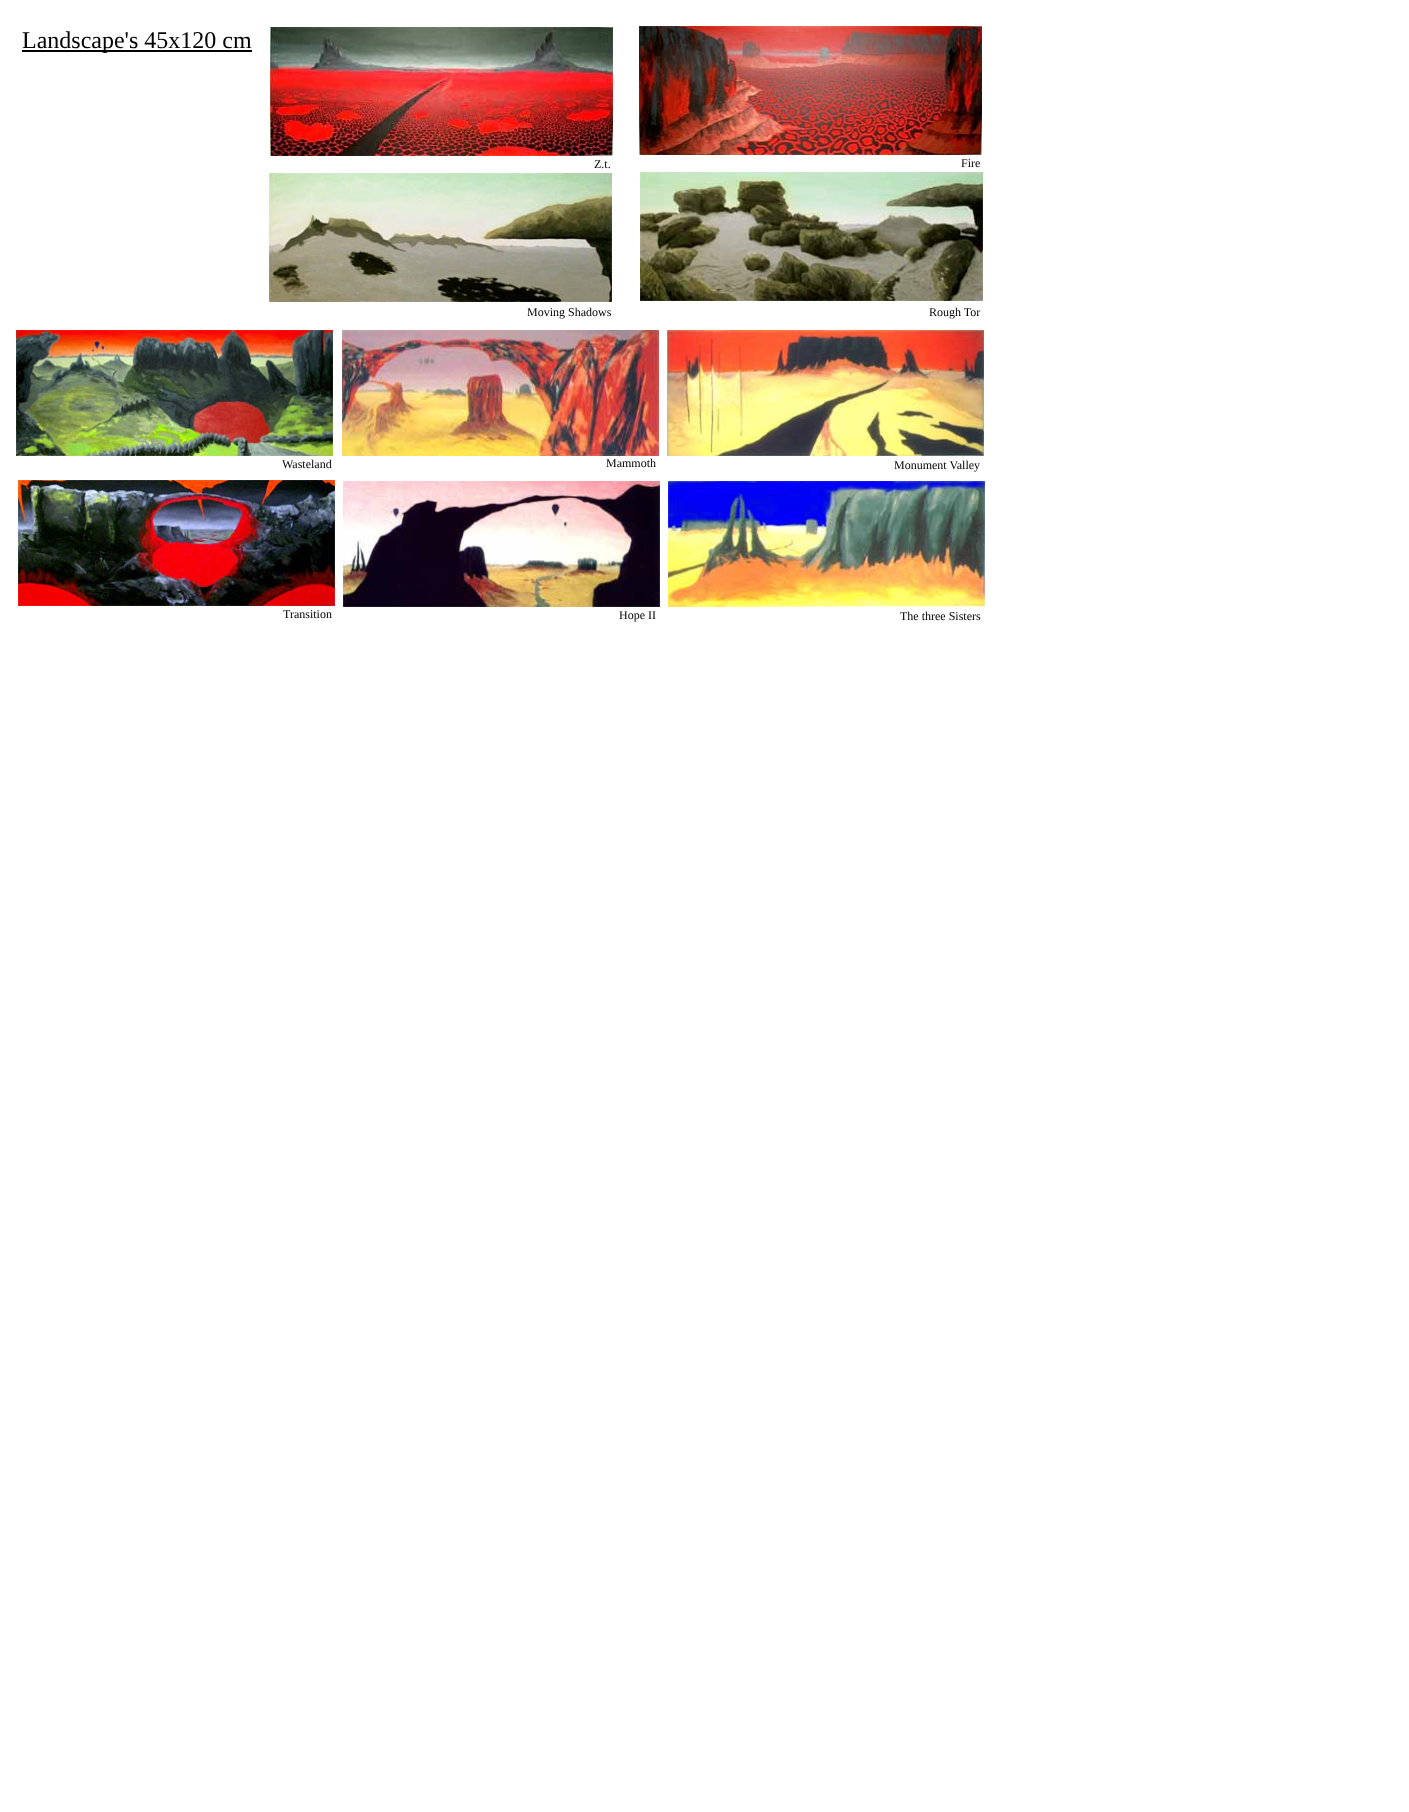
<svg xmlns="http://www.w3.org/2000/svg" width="1409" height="1812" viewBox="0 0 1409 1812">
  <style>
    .t1 { font: 24px Liberation Serif; fill: #000; }
    .t2 { font: 12px Liberation Serif; fill: #000; }
  </style>
  <rect width="100%" height="100%" fill="#fff"/>
  <rect x="22" y="50" width="230" height="2" fill="#000"/>
  <text x="22" y="48" class="t1">Landscape's 45x120 cm</text>
  <image x="270" y="27" width="343" height="129" href="images/1.png"/>
  <image x="639" y="26" width="343" height="129" href="images/2.png"/>
  <text x="594" y="168" class="t2">Z.t.</text>
  <text x="961" y="167" class="t2">Fire</text>
  <image x="269" y="173" width="343" height="129" href="images/3.png"/>
  <image x="640" y="172" width="343" height="129" href="images/4.png"/>
  <text x="527" y="316" class="t2">Moving Shadows</text>
  <text x="929" y="316" class="t2">Rough Tor</text>
  <image x="16" y="330" width="317" height="126" href="images/5.png"/>
  <image x="342" y="330" width="317" height="126" href="images/6.png"/>
  <image x="667" y="330" width="317" height="126" href="images/7.png"/>
  <text x="282" y="468" class="t2">Wasteland</text>
  <text x="606" y="467" class="t2">Mammoth</text>
  <text x="894" y="469" class="t2">Monument Valley</text>
  <image x="18" y="480" width="317" height="126" href="images/8.png"/>
  <image x="343" y="481" width="317" height="126" href="images/9.png"/>
  <image x="668" y="481" width="317" height="126" href="images/10.png"/>
  <text x="283" y="618" class="t2">Transition</text>
  <text x="619" y="619" class="t2">Hope II</text>
  <text x="900" y="620" class="t2">The three Sisters</text>
</svg>
